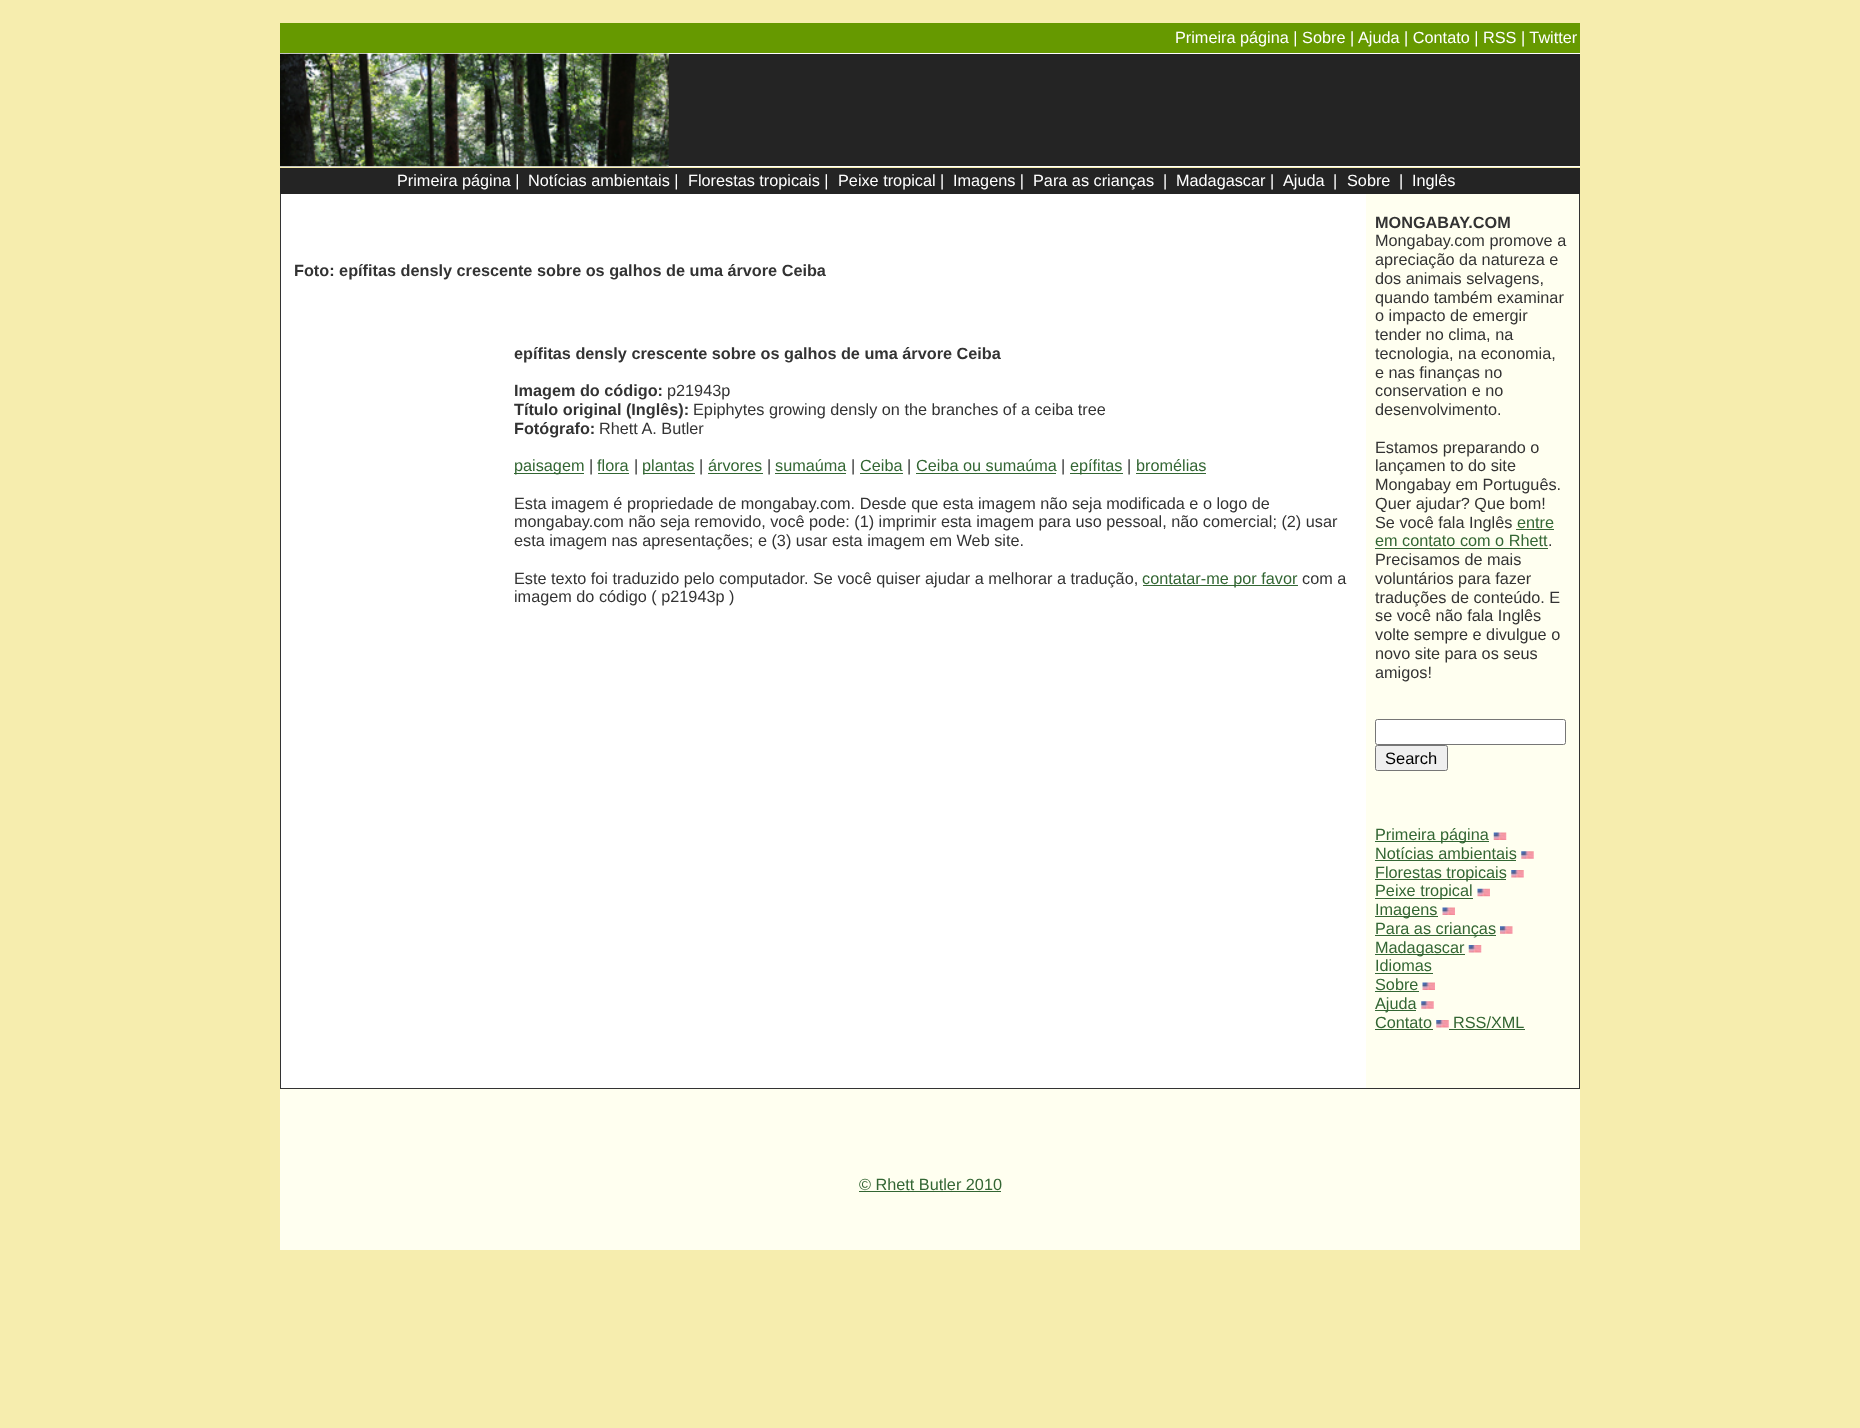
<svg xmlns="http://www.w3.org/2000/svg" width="1860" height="1428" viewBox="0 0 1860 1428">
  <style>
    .t1 { font: 16.25px Liberation Sans; fill: #fff; }
    .t2 { font: bold 16.25px Liberation Sans; fill: #333; }
    .t3 { font: 16.25px Liberation Sans; fill: #333; }
    .t4 { font: 16.25px Liberation Sans; fill: #363; }
    .t5 { font: 16.5px Liberation Sans; fill: #000; }
  </style>
  <rect width="100%" height="100%" fill="#f6edae"/>
  <rect x="280" y="23" width="1300" height="30" fill="#690"/>
  <text x="1175" y="43" class="t1">Primeira página | Sobre</text>
  <text x="1350" y="43" class="t1">|</text>
  <text x="1358" y="43" class="t1">Ajuda | Contato | RSS | Twitter</text>
  <rect x="280" y="53" width="1300" height="1" fill="#fff"/>
  <rect x="668" y="54" width="912" height="112" fill="#242424"/>
  <rect x="280" y="166" width="1300" height="1" fill="#fff"/>
  <image x="280" y="53" width="389" height="114" href="images/1.png"/>
  <rect x="280" y="168" width="1300" height="26" fill="#242424"/>
  <text x="397" y="186" class="t1">Primeira página |</text>
  <text x="528" y="186" class="t1">Notícias ambientais |</text>
  <text x="688" y="186" class="t1">Florestas tropicais |</text>
  <text x="838" y="186" class="t1">Peixe tropical |</text>
  <text x="953" y="186" class="t1">Imagens |</text>
  <text x="1033" y="186" class="t1">Para as crianças</text>
  <text x="1163" y="186" class="t1">|</text>
  <text x="1176" y="186" class="t1">Madagascar |</text>
  <text x="1283" y="186" class="t1">Ajuda</text>
  <text x="1333" y="186" class="t1">|</text>
  <text x="1347" y="186" class="t1">Sobre</text>
  <text x="1399" y="186" class="t1">|</text>
  <text x="1412" y="186" class="t1">Inglês</text>
  <rect x="281" y="194" width="1085" height="894" fill="#fff"/>
  <rect x="280" y="194" width="1" height="894" fill="#333"/>
  <text x="294" y="276" class="t2">Foto: epífitas densly crescente sobre os galhos de uma árvore Ceiba</text>
  <text x="514" y="359" class="t2">epífitas densly crescente sobre os galhos de uma árvore Ceiba</text>
  <text x="514" y="396" class="t2">Imagem do código:</text>
  <text x="667" y="396" class="t3">p21943p</text>
  <text x="514" y="415" class="t2">Título original (Inglês):</text>
  <text x="693" y="415" class="t3">Epiphytes growing densly on the branches of a ceiba tree</text>
  <text x="514" y="434" class="t2">Fotógrafo:</text>
  <text x="599" y="434" class="t3">Rhett A. Butler</text>
  <rect x="514" y="473" width="70" height="1" fill="#363"/>
  <text x="514" y="471" class="t4">paisagem</text>
  <text x="589" y="471" class="t3">|</text>
  <text x="597" y="471" class="t4">flora</text>
  <rect x="598" y="473" width="31" height="1" fill="#363"/>
  <text x="634" y="471" class="t3">|</text>
  <rect x="643" y="473" width="52" height="1" fill="#363"/>
  <text x="642" y="471" class="t4">plantas</text>
  <text x="699" y="471" class="t3">|</text>
  <text x="708" y="471" class="t4">árvores</text>
  <rect x="708" y="473" width="55" height="1" fill="#363"/>
  <text x="767" y="471" class="t3">|</text>
  <text x="775" y="471" class="t4">sumaúma</text>
  <rect x="775" y="473" width="71" height="1" fill="#363"/>
  <text x="851" y="471" class="t3">|</text>
  <text x="860" y="471" class="t4">Ceiba</text>
  <rect x="860" y="473" width="43" height="1" fill="#363"/>
  <text x="907" y="471" class="t3">|</text>
  <text x="916" y="471" class="t4">Ceiba ou sumaúma</text>
  <rect x="916" y="473" width="140" height="1" fill="#363"/>
  <text x="1061" y="471" class="t3">|</text>
  <rect x="1070" y="473" width="53" height="1" fill="#363"/>
  <text x="1070" y="471" class="t4">epífitas</text>
  <text x="1127" y="471" class="t3">|</text>
  <text x="1136" y="471" class="t4">bromélias</text>
  <rect x="1136" y="473" width="70" height="1" fill="#363"/>
  <text x="514" y="509" class="t3">Esta imagem é propriedade de mongabay.com. Desde que esta imagem não seja modificada e o logo de</text>
  <text x="514" y="527" class="t3">mongabay.com não seja removido, você pode: (1) imprimir esta imagem para uso pessoal, não comercial; (2) usar</text>
  <text x="514" y="546" class="t3">esta imagem nas apresentações; e (3) usar esta imagem em Web site.</text>
  <text x="514" y="584" class="t3">Este texto foi traduzido pelo computador. Se você quiser ajudar a melhorar a tradução,</text>
  <rect x="1143" y="585" width="155" height="1" fill="#363"/>
  <text x="1142" y="584" class="t4">contatar-me por favor</text>
  <text x="1302" y="584" class="t3">com a</text>
  <text x="514" y="602" class="t3">imagem do código ( p21943p )</text>
  <rect x="1366" y="194" width="213" height="894" fill="#fffff0"/>
  <text x="1375" y="228" class="t2">MONGABAY.COM</text>
  <text x="1375" y="246" class="t3">Mongabay.com promove a</text>
  <text x="1375" y="265" class="t3">apreciação da natureza e</text>
  <text x="1375" y="284" class="t3">dos animais selvagens,</text>
  <text x="1375" y="303" class="t3">quando também examinar</text>
  <text x="1375" y="321" class="t3">o impacto de emergir</text>
  <text x="1375" y="340" class="t3">tender no clima, na</text>
  <text x="1375" y="359" class="t3">tecnologia, na economia,</text>
  <text x="1375" y="378" class="t3">e nas finanças no</text>
  <text x="1375" y="396" class="t3">conservation e no</text>
  <text x="1375" y="415" class="t3">desenvolvimento.</text>
  <text x="1375" y="453" class="t3">Estamos preparando o</text>
  <text x="1375" y="471" class="t3">lançamen to do site</text>
  <text x="1375" y="490" class="t3">Mongabay em Português.</text>
  <text x="1375" y="509" class="t3">Quer ajudar? Que bom!</text>
  <text x="1375" y="528" class="t3">Se você fala Inglês</text>
  <text x="1517" y="528" class="t4">entre</text>
  <rect x="1516" y="529" width="38" height="1" fill="#363"/>
  <text x="1375" y="546" class="t4">em contato com o Rhett</text>
  <rect x="1375" y="548" width="173" height="1" fill="#363"/>
  <text x="1548" y="546" class="t3">.</text>
  <text x="1375" y="565" class="t3">Precisamos de mais</text>
  <text x="1375" y="584" class="t3">voluntários para fazer</text>
  <text x="1375" y="603" class="t3">traduções de conteúdo. E</text>
  <text x="1375" y="621" class="t3">se você não fala Inglês</text>
  <text x="1375" y="640" class="t3">volte sempre e divulgue o</text>
  <text x="1375" y="659" class="t3">novo site para os seus</text>
  <text x="1375" y="678" class="t3">amigos!</text>
  <rect x="1375.5" y="719.5" width="190" height="25" rx="2" fill="#fff" stroke="#767676"/>
  <rect x="1375.5" y="745.5" width="72" height="25" rx="2" fill="#efefef" stroke="#767676"/>
  <text x="1385" y="764" class="t5">Search</text>
  <rect x="1375" y="841" width="114" height="1" fill="#363"/>
  <text x="1375" y="840" class="t4">Primeira página</text>
  <image x="1493" y="832" width="14" height="8" href="images/2.png"/>
  <text x="1375" y="859" class="t4">Notícias ambientais</text>
  <rect x="1375" y="860" width="141" height="1" fill="#363"/>
  <image x="1521" y="851" width="13" height="8" href="images/3.png"/>
  <rect x="1375" y="879" width="131" height="1" fill="#363"/>
  <text x="1375" y="878" class="t4">Florestas tropicais</text>
  <image x="1511" y="870" width="13" height="8" href="images/4.png"/>
  <rect x="1375" y="898" width="98" height="1" fill="#363"/>
  <text x="1375" y="896" class="t4">Peixe tropical</text>
  <image x="1477" y="888" width="13" height="9" href="images/5.png"/>
  <rect x="1375" y="916" width="63" height="1" fill="#363"/>
  <text x="1375" y="915" class="t4">Imagens</text>
  <image x="1442" y="907" width="13" height="8" href="images/6.png"/>
  <rect x="1375" y="935" width="121" height="1" fill="#363"/>
  <text x="1375" y="934" class="t4">Para as crianças</text>
  <image x="1500" y="926" width="13" height="8" href="images/7.png"/>
  <rect x="1375" y="954" width="90" height="1" fill="#363"/>
  <text x="1375" y="953" class="t4">Madagascar</text>
  <image x="1468" y="945" width="14" height="8" href="images/8.png"/>
  <text x="1375" y="971" class="t4">Idiomas</text>
  <rect x="1375" y="973" width="58" height="1" fill="#363"/>
  <text x="1375" y="990" class="t4">Sobre</text>
  <rect x="1375" y="991" width="44" height="1" fill="#363"/>
  <image x="1422" y="982" width="13" height="8" href="images/6.png"/>
  <rect x="1375" y="1010" width="41" height="1" fill="#363"/>
  <text x="1375" y="1009" class="t4">Ajuda</text>
  <image x="1421" y="1001" width="13" height="8" href="images/3.png"/>
  <text x="1375" y="1028" class="t4">Contato</text>
  <rect x="1375" y="1029" width="58" height="1" fill="#363"/>
  <image x="1436" y="1020" width="13" height="8" href="images/4.png"/>
  <text x="1453" y="1028" class="t4">RSS/XML</text>
  <rect x="1449" y="1029" width="76" height="1" fill="#363"/>
  <rect x="1579" y="194" width="1" height="894" fill="#333"/>
  <rect x="280" y="1088" width="1300" height="1" fill="#333"/>
  <rect x="280" y="1089" width="1300" height="161" fill="#fffff0"/>
  <text x="859" y="1190" class="t4">© Rhett Butler 2010</text>
  <rect x="859" y="1191" width="142" height="1" fill="#363"/>
</svg>
